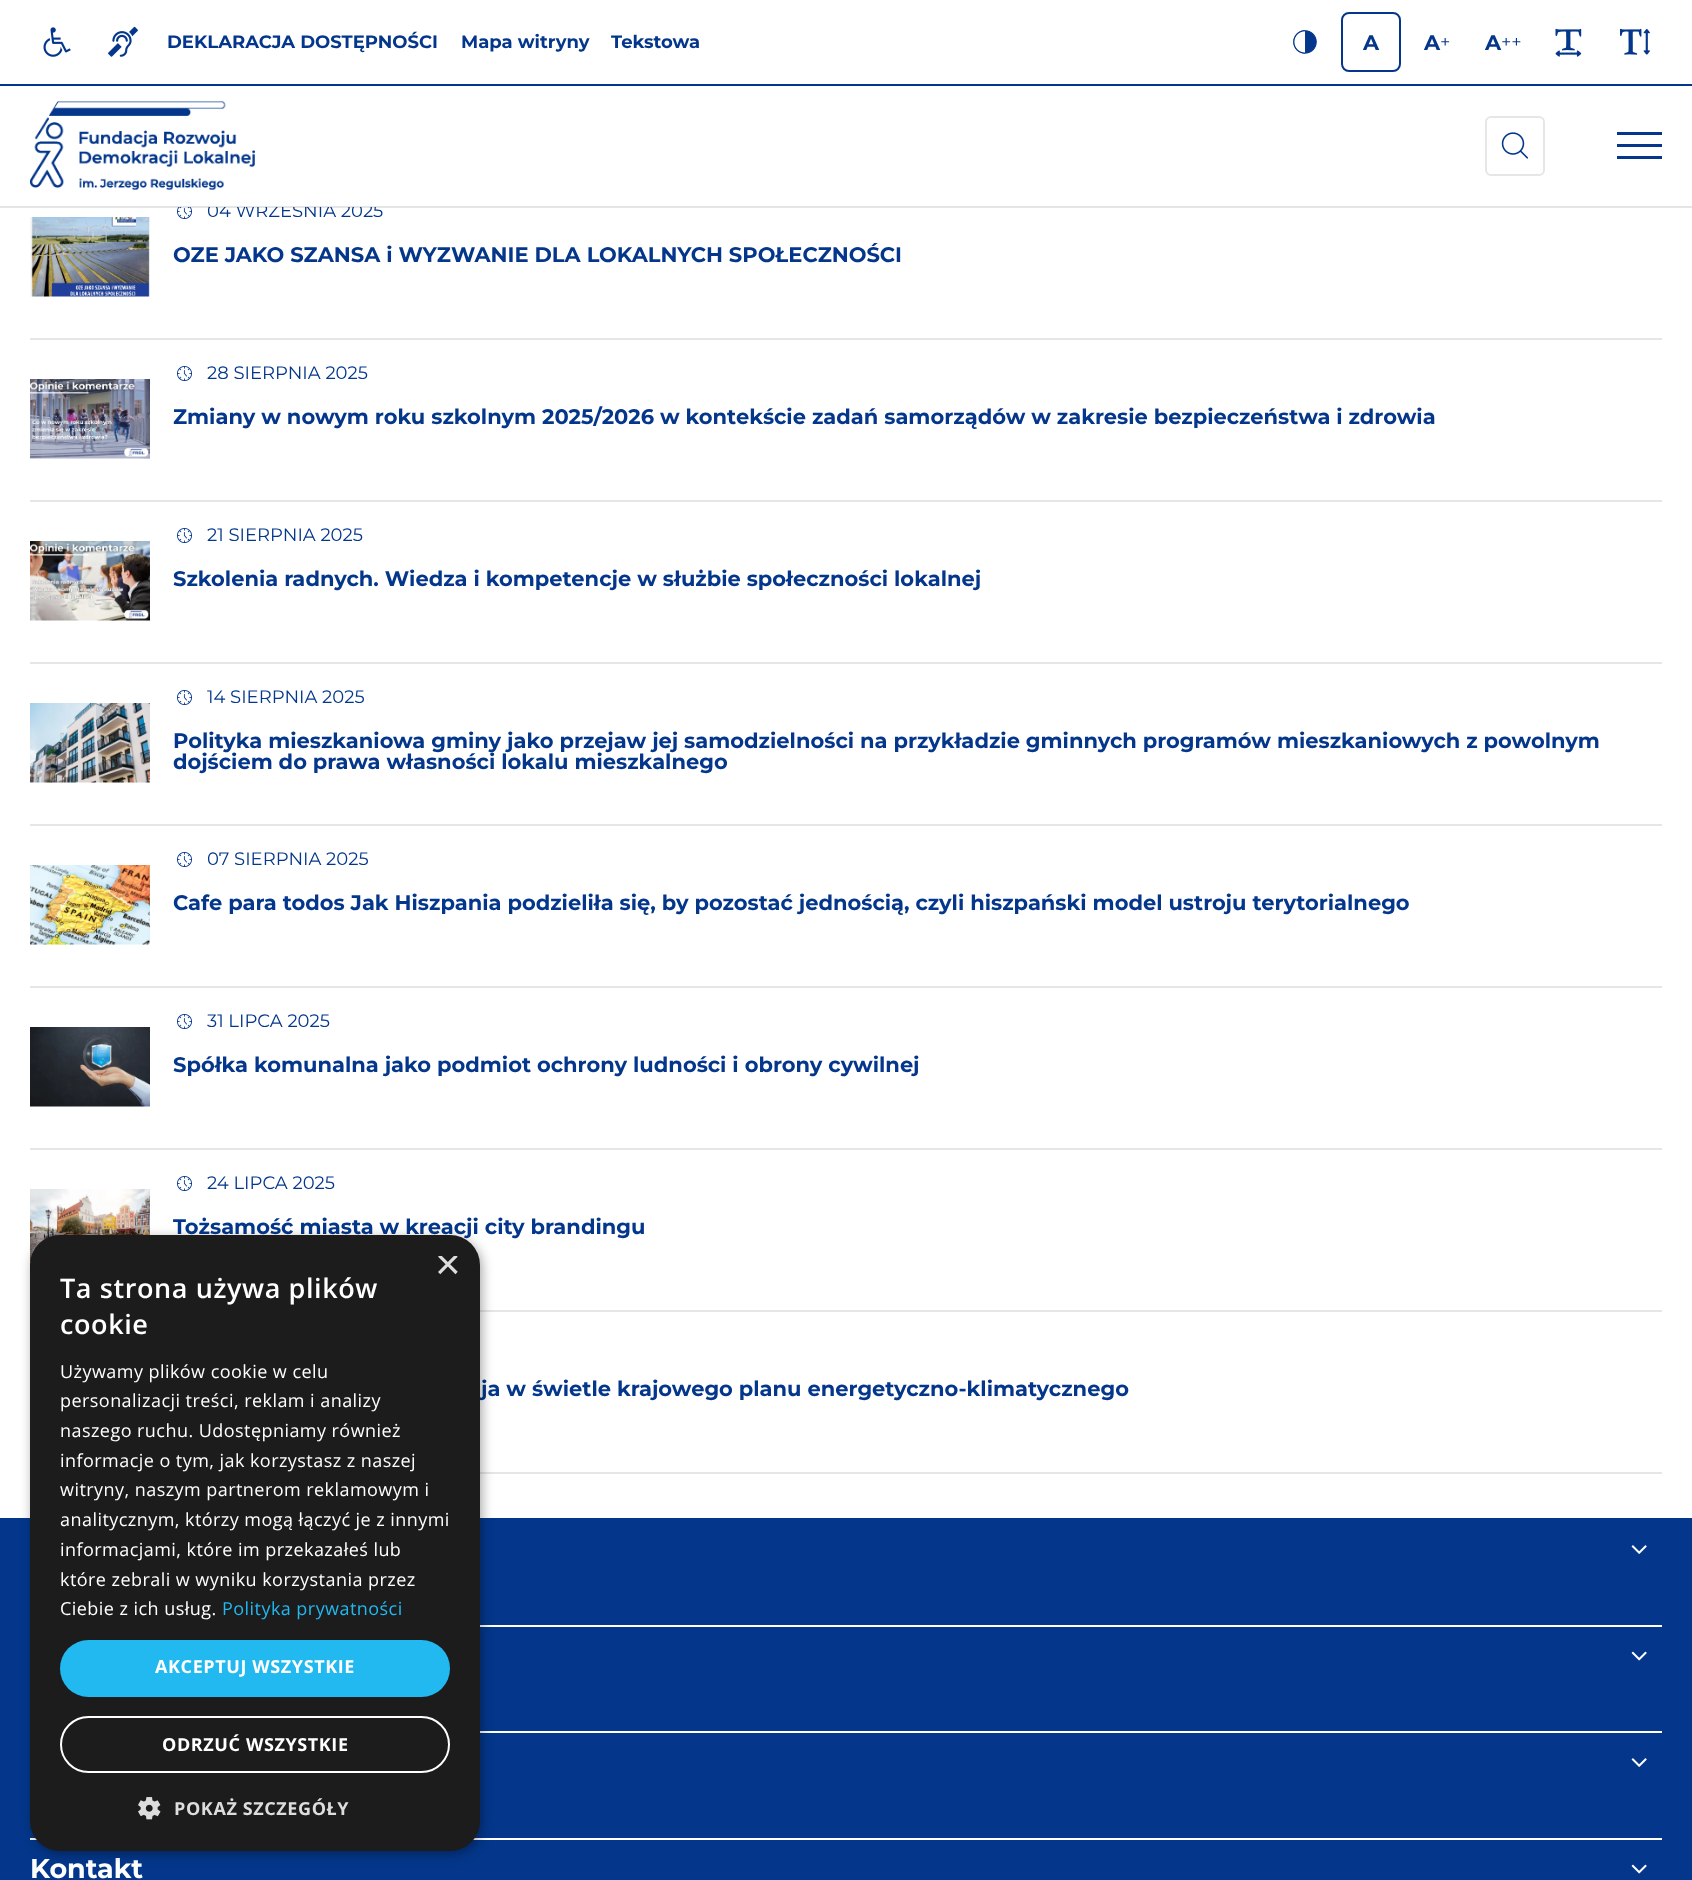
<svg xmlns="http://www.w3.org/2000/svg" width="1692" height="1880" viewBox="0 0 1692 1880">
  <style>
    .t1 { font: 18px Montserrat; fill: #04378b; }
    .t2 { font: bold 18px Montserrat; fill: #04378b; }
    .t3 { font: bold 21px Montserrat; fill: #04378b; }
    .t4 { font: bold 27px Montserrat; fill: #fff; }
    .t5 { font: 44px Liberation Sans; fill: #ddd; }
    .t6 { font: 600 27px Open Sans; letter-spacing: 0.6px; fill: #fff; }
    .t7 { font: 18px Open Sans; letter-spacing: 0.45px; fill: #fff; }
    .t8 { font: 18px Open Sans; letter-spacing: 0.45px; fill: #22b8f0; }
    .t9 { font: bold 18px Open Sans; letter-spacing: 0.6px; fill: #fff; }
    .t10 { font: bold 18px Open Sans; letter-spacing: 0.6px; fill: #ddd; }
  </style>
  <defs>
    <clipPath id="clip1"><rect x="435" y="1256" width="23" height="22"/></clipPath>
  </defs>
  <rect width="100%" height="100%" fill="#fff"/>
  <text x="207" y="217" class="t1">04 WRZEŚNIA 2025</text>
  <rect x="209" y="201" width="174" height="6" fill="#fff"/>
  <image x="177" y="207" width="15" height="12" href="images/9.png"/>
  <rect x="0" y="206" width="1692" height="2" fill="#0000001a"/>
  <rect x="0" y="84" width="1692" height="2" fill="#04378b"/>
  <image x="43" y="27" width="28" height="30" href="images/1.png"/>
  <image x="108" y="26" width="30" height="31" href="images/2.png"/>
  <text x="167" y="48" class="t2">DEKLARACJA DOSTĘPNOŚCI</text>
  <text x="461" y="48" class="t2">Mapa witryny</text>
  <text x="611" y="48" class="t2">Tekstowa</text>
  <image x="1293" y="30" width="24" height="24" href="images/3.png"/>
  <rect x="1342" y="13" width="58" height="58" rx="7" fill="none" stroke="#04378b" stroke-width="2"/>
  <text x="1363" y="50" class="t3">A</text>
  <text x="1424" y="50" class="t3">A</text>
  <text x="1440" y="48" class="t1">+</text>
  <text x="1485" y="50" class="t3">A</text>
  <text x="1501" y="48" class="t1">++</text>
  <image x="1555" y="28" width="27" height="29" href="images/4.png"/>
  <image x="1620" y="28" width="30" height="27" href="images/5.png"/>
  <image x="30" y="101" width="225" height="89" href="images/6.png"/>
  <rect x="1486" y="117" width="58" height="58" rx="5" fill="none" stroke="#e6e6e6" stroke-width="2"/>
  <image x="1501" y="132" width="28" height="27" href="images/7.png"/>
  <rect x="1617" y="132" width="45" height="3" fill="#04378b"/>
  <rect x="1617" y="144" width="45" height="3" fill="#04378b"/>
  <rect x="1617" y="156" width="45" height="3" fill="#04378b"/>
  <rect x="30" y="338" width="1632" height="2" fill="#e6e6e6"/>
  <image x="30" y="217" width="120" height="80" href="images/8.png"/>
  <text x="173" y="262" class="t3">OZE JAKO SZANSA i WYZWANIE DLA LOKALNYCH SPOŁECZNOŚCI</text>
  <rect x="30" y="500" width="1632" height="2" fill="#e6e6e6"/>
  <image x="30" y="379" width="120" height="80" href="images/10.png"/>
  <image x="177" y="366" width="15" height="15" href="images/11.png"/>
  <text x="207" y="379" class="t1">28 SIERPNIA 2025</text>
  <text x="173" y="424" class="t3">Zmiany w nowym roku szkolnym 2025/2026 w kontekście zadań samorządów w zakresie bezpieczeństwa i zdrowia</text>
  <rect x="30" y="662" width="1632" height="2" fill="#e6e6e6"/>
  <image x="30" y="541" width="120" height="80" href="images/12.png"/>
  <image x="177" y="528" width="15" height="15" href="images/11.png"/>
  <text x="207" y="541" class="t1">21 SIERPNIA 2025</text>
  <text x="173" y="586" class="t3">Szkolenia radnych. Wiedza i kompetencje w służbie społeczności lokalnej</text>
  <rect x="30" y="824" width="1632" height="2" fill="#e6e6e6"/>
  <image x="30" y="703" width="120" height="80" href="images/13.png"/>
  <image x="177" y="690" width="15" height="15" href="images/11.png"/>
  <text x="207" y="703" class="t1">14 SIERPNIA 2025</text>
  <text x="173" y="748" class="t3">Polityka mieszkaniowa gminy jako przejaw jej samodzielności na przykładzie gminnych programów mieszkaniowych z powolnym</text>
  <text x="173" y="769" class="t3">dojściem do prawa własności lokalu mieszkalnego</text>
  <rect x="30" y="986" width="1632" height="2" fill="#e6e6e6"/>
  <image x="30" y="865" width="120" height="80" href="images/14.png"/>
  <image x="177" y="852" width="15" height="15" href="images/11.png"/>
  <text x="207" y="865" class="t1">07 SIERPNIA 2025</text>
  <text x="173" y="910" class="t3">Cafe para todos Jak Hiszpania podzieliła się, by pozostać jednością, czyli hiszpański model ustroju terytorialnego</text>
  <rect x="30" y="1148" width="1632" height="2" fill="#e6e6e6"/>
  <image x="30" y="1027" width="120" height="80" href="images/15.png"/>
  <image x="177" y="1014" width="15" height="15" href="images/11.png"/>
  <text x="207" y="1027" class="t1">31 LIPCA 2025</text>
  <text x="173" y="1072" class="t3">Spółka komunalna jako podmiot ochrony ludności i obrony cywilnej</text>
  <rect x="480" y="1310" width="1182" height="2" fill="#e6e6e6"/>
  <image x="30" y="1189" width="120" height="76" href="images/16.png"/>
  <image x="177" y="1176" width="15" height="15" href="images/11.png"/>
  <text x="207" y="1189" class="t1">24 LIPCA 2025</text>
  <text x="173" y="1234" class="t3">Tożsamość miasta w kreacji city brandingu</text>
  <rect x="480" y="1472" width="1182" height="2" fill="#e6e6e6"/>
  <text x="481" y="1396" class="t3">ja w świetle krajowego planu energetyczno-klimatycznego</text>
  <rect x="0" y="1518" width="1692" height="362" fill="#04378b"/>
  <rect x="480" y="1625" width="1182" height="2" fill="#fff"/>
  <image x="1631" y="1545" width="16" height="9" href="images/17.png"/>
  <rect x="480" y="1731" width="1182" height="2" fill="#fff"/>
  <image x="1631" y="1651" width="16" height="10" href="images/18.png"/>
  <rect x="30" y="1838" width="1632" height="2" fill="#fff"/>
  <image x="1631" y="1758" width="16" height="9" href="images/17.png"/>
  <text x="30" y="1878" class="t4">Kontakt</text>
  <image x="1631" y="1864" width="16" height="10" href="images/18.png"/>
  <rect x="32" y="1238" width="450" height="616" rx="30" fill="#00000059" filter="blur(6px)"/>
  <rect x="30" y="1235" width="450" height="616" rx="30" fill="#1c1c1c"/>
  <g clip-path="url(#clip1)">
    <text x="435" y="1279" class="t5">×</text>
  </g>
  <text x="60" y="1298" class="t6">Ta strona używa plików</text>
  <text x="60" y="1334" class="t6">cookie</text>
  <text x="60" y="1378" class="t7">Używamy plików cookie w celu</text>
  <text x="60" y="1407" class="t7">personalizacji treści, reklam i analizy</text>
  <text x="60" y="1437" class="t7">naszego ruchu. Udostępniamy również</text>
  <text x="60" y="1467" class="t7">informacje o tym, jak korzystasz z naszej</text>
  <text x="60" y="1496" class="t7">witryny, naszym partnerom reklamowym i</text>
  <text x="60" y="1526" class="t7">analitycznym, którzy mogą łączyć je z innymi</text>
  <text x="60" y="1556" class="t7">informacjami, które im przekazałeś lub</text>
  <text x="60" y="1586" class="t7">które zebrali w wyniku korzystania przez</text>
  <text x="60" y="1615" class="t7">Ciebie z ich usług.</text>
  <text x="222" y="1615" class="t8">Polityka prywatności</text>
  <rect x="60" y="1640" width="390" height="57" rx="28.5" fill="#22b8f0"/>
  <text x="155" y="1673" class="t9">AKCEPTUJ WSZYSTKIE</text>
  <rect x="61" y="1717" width="388" height="55" rx="27.5" fill="none" stroke="#fff" stroke-width="2"/>
  <text x="162" y="1751" class="t9">ODRZUĆ WSZYSTKIE</text>
  <image x="138" y="1797" width="23" height="23" href="images/19.png"/>
  <text x="174" y="1815" class="t10">POKAŻ SZCZEGÓŁY</text>
</svg>
